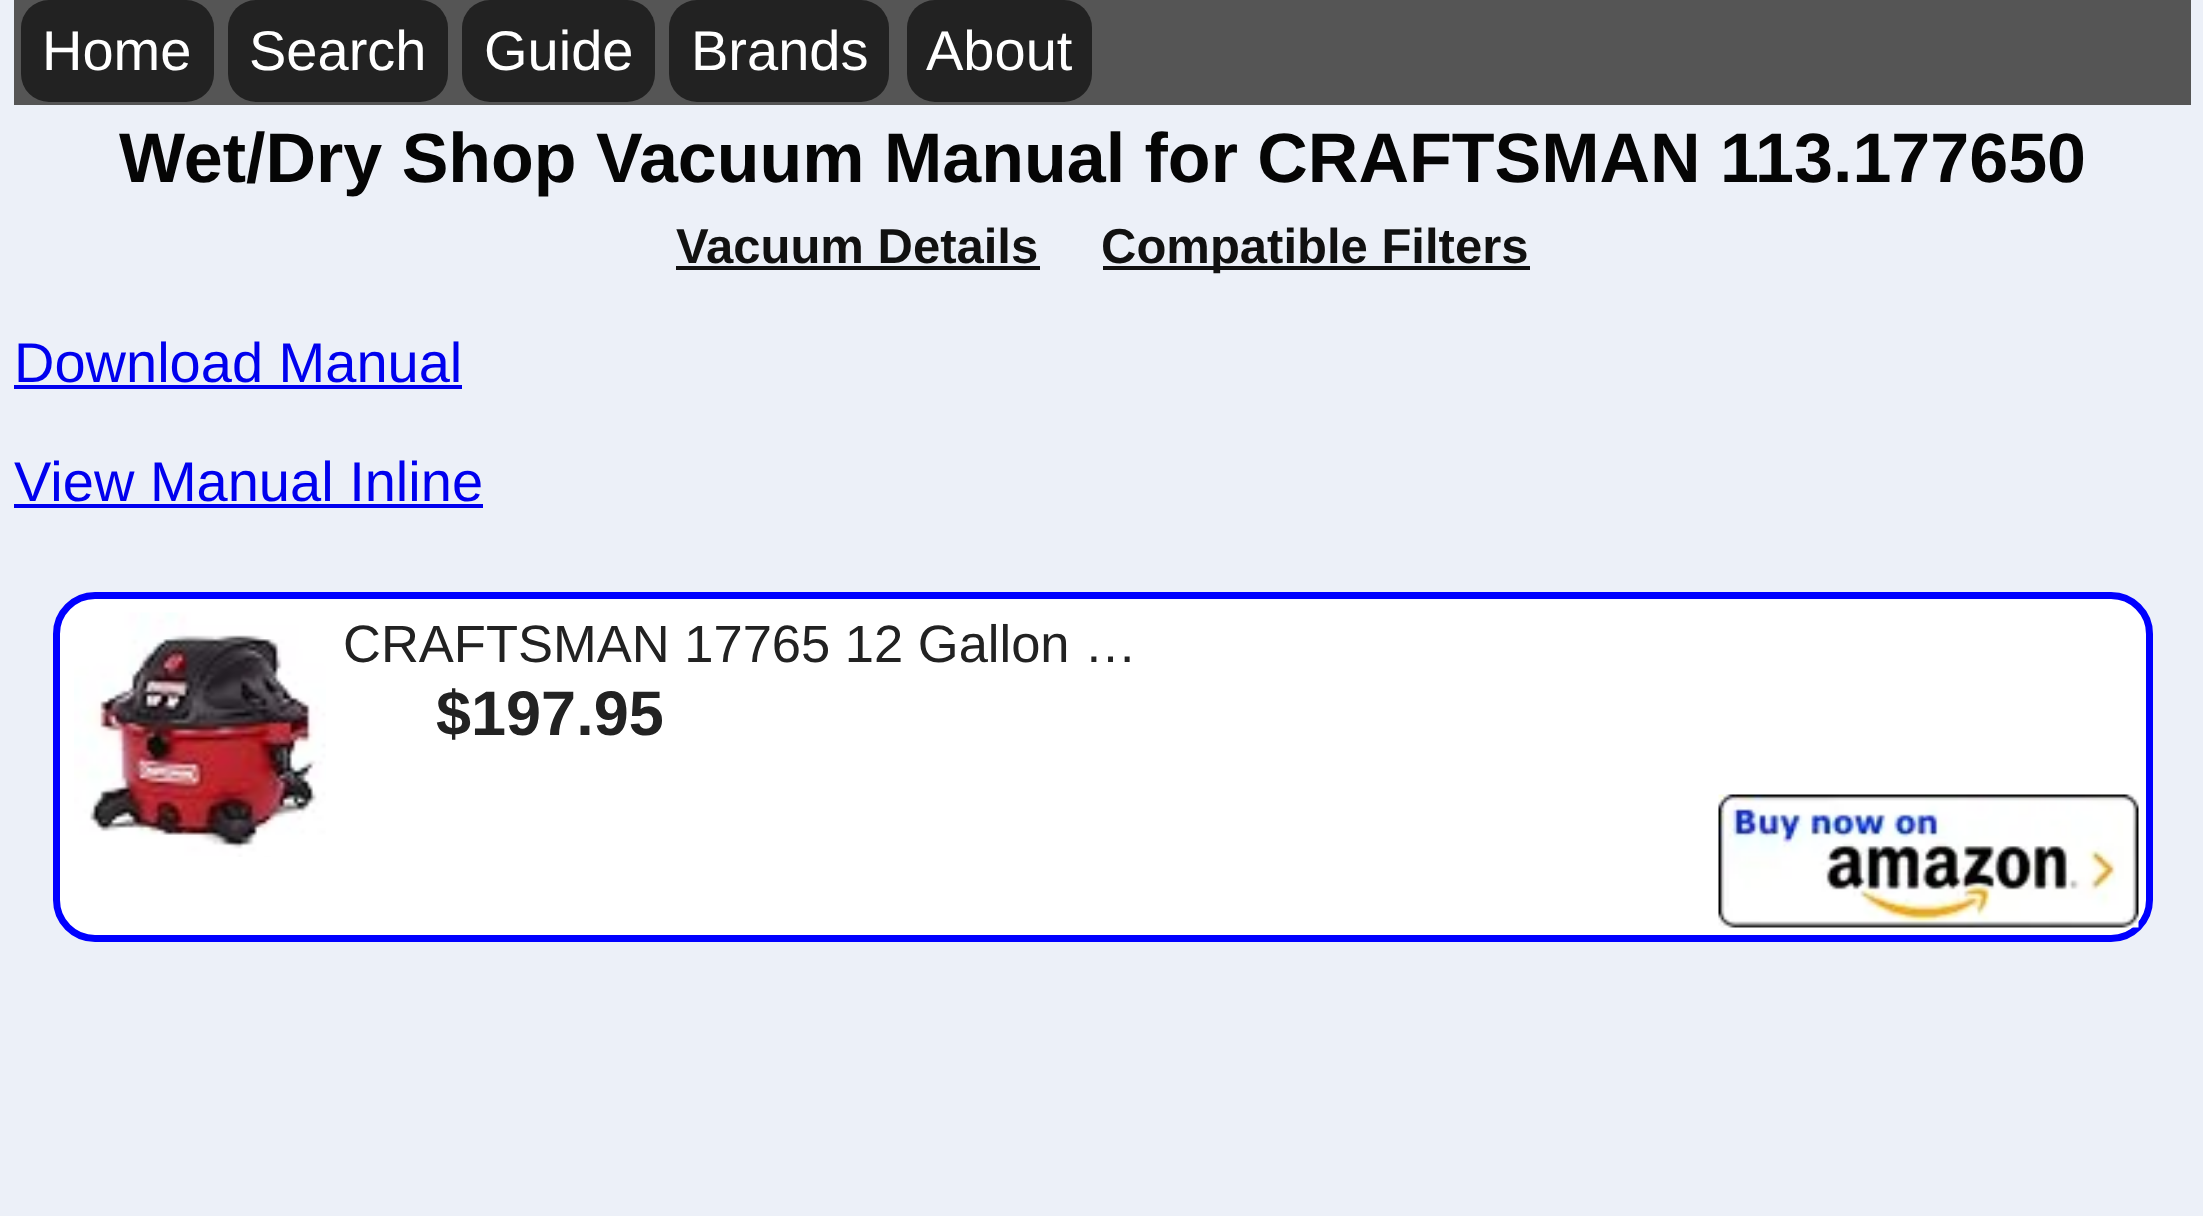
<svg xmlns="http://www.w3.org/2000/svg" width="2203" height="1216" viewBox="0 0 2203 1216">
  <style>
    .t1 { font: 56px Liberation Sans; fill: #fff; }
    .t2 { font: bold 70px Liberation Sans; fill: #050505; }
    .t3 { font: bold 49px Liberation Sans; fill: #111; }
    .t4 { font: 56px Liberation Sans; fill: #00e; }
    .t5 { font: 52.5px Liberation Sans; fill: #222; }
    .t6 { font: bold 63px Liberation Sans; fill: #222; }
  </style>
  <rect width="100%" height="100%" fill="#ecf0f8"/>
  <rect x="14" y="0" width="2177" height="105" fill="#555"/>
  <rect x="21" y="0" width="193" height="102" rx="28" fill="#222"/>
  <text x="42" y="70" class="t1">Home</text>
  <rect x="228" y="0" width="220" height="102" rx="28" fill="#222"/>
  <text x="249" y="70" class="t1">Search</text>
  <rect x="462" y="0" width="193" height="102" rx="28" fill="#222"/>
  <text x="484" y="70" class="t1">Guide</text>
  <rect x="669" y="0" width="220" height="102" rx="28" fill="#222"/>
  <text x="691" y="70" class="t1">Brands</text>
  <rect x="907" y="0" width="185" height="102" rx="28" fill="#222"/>
  <text x="926" y="70" class="t1">About</text>
  <text x="119" y="182" class="t2">Wet/Dry Shop Vacuum Manual for CRAFTSMAN 113.177650</text>
  <text x="676" y="263" class="t3">Vacuum Details</text>
  <rect x="676" y="266" width="364" height="4" fill="#111"/>
  <rect x="1103" y="266" width="427" height="4" fill="#111"/>
  <text x="1101" y="263" class="t3">Compatible Filters</text>
  <text x="14" y="382" class="t4">Download Manual</text>
  <rect x="14" y="385" width="448" height="4" fill="#00e"/>
  <text x="14" y="501" class="t4">View Manual Inline</text>
  <rect x="14" y="504" width="469" height="4" fill="#00e"/>
  <rect x="56.5" y="595.5" width="2093" height="343" rx="38.5" fill="#fff" stroke="#00f" stroke-width="7"/>
  <image x="74" y="612" width="252" height="245" href="images/1.png"/>
  <text x="343" y="662" class="t5">CRAFTSMAN 17765 12 Gallon …</text>
  <text x="436" y="735" class="t6">$197.95</text>
  <image x="1718" y="794" width="421" height="134" href="images/2.png"/>
</svg>
